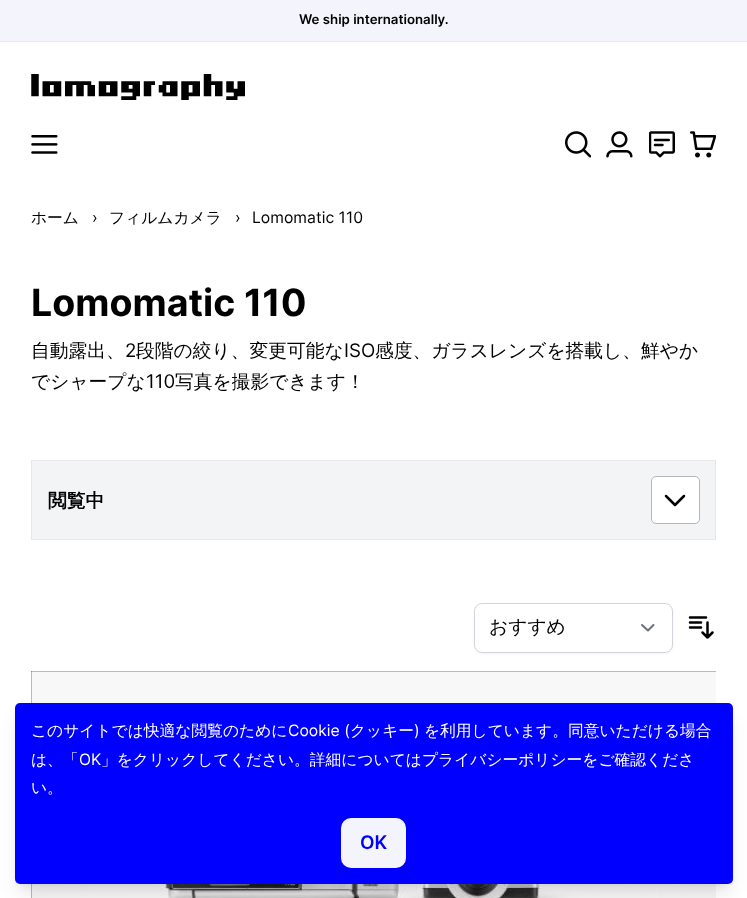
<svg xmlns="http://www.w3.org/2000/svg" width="747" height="898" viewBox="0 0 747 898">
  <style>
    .t1 { font: 600 13.25px Inter; fill: #000; }
    .t2 { font: 500 15.75px WenQuanYi Zen Hei; fill: #000; }
    .t3 { font: 15.75px Inter; fill: #000; }
    .t4 { font: bold 37.5px Inter; fill: #000; }
    .t5 { font: 500 18.75px WenQuanYi Zen Hei; fill: #000; }
    .t6 { font: 18.75px Inter; fill: #000; }
    .t7 { font: bold 18.75px WenQuanYi Zen Hei; fill: #000; }
    .t8 { font: 500 15.75px WenQuanYi Zen Hei; fill: #fff; }
    .t9 { font: 15.75px Inter; fill: #fff; }
    .t10 { font: 600 18.75px Inter; fill: #0000fe; }
  </style>
  <rect width="100%" height="100%" fill="#fff"/>
  <rect x="0" y="0" width="747" height="41" fill="#f4f4fc"/>
  <rect x="0" y="41" width="747" height="1" fill="#e9e8f9"/>
  <text x="299" y="24" class="t1">We ship internationally.</text>
  <image x="31" y="74" width="214" height="26" href="images/1.png"/>
  <image x="31" y="135" width="27" height="19" href="images/2.png"/>
  <image x="565" y="131" width="26" height="27" href="images/3.png"/>
  <image x="606" y="131" width="27" height="27" href="images/4.png"/>
  <image x="649" y="131" width="26" height="27" href="images/5.png"/>
  <image x="690" y="131" width="26" height="27" href="images/6.png"/>
  <text x="31" y="223" class="t2">ホーム</text>
  <text x="92" y="223" class="t3">›</text>
  <text x="109" y="223" class="t2">フィルムカメラ</text>
  <text x="235" y="223" class="t3">›</text>
  <text x="252" y="223" class="t3">Lomomatic 110</text>
  <text x="31" y="316" class="t4">Lomomatic 110</text>
  <text x="31" y="357" class="t5">自動露出、</text>
  <text x="125" y="357" class="t6">2</text>
  <text x="136" y="357" class="t5">段階の絞り、変更可能な</text>
  <text x="344" y="357" class="t6">ISO</text>
  <text x="375" y="357" class="t5">感度、ガラスレンズを搭載し、鮮やか</text>
  <text x="31" y="388" class="t5">でシャープな</text>
  <text x="146" y="388" class="t6">110</text>
  <text x="175" y="388" class="t5">写真を撮影できます！</text>
  <rect x="31.5" y="460.5" width="684" height="79" fill="#f3f4f6" stroke="#e5e7eb"/>
  <text x="48" y="507" class="t7">閲覧中</text>
  <rect x="651.5" y="476.5" width="48" height="47" rx="4.5" fill="#fff" stroke="#b6b6b6"/>
  <path d="M684 496L675 505L666 496" fill="none" stroke="#000" stroke-width="2.5" stroke-linecap="round" stroke-linejoin="round"/>
  <rect x="474" y="604" width="199" height="50" rx="8" fill="#0000000d" filter="blur(1px)"/>
  <rect x="474" y="603" width="199" height="50" rx="8" fill="#fff"/>
  <path d="M642 625L648 630.5L653.5 625" fill="none" stroke="#6b7280" stroke-width="2.1" stroke-linecap="round" stroke-linejoin="round"/>
  <rect x="474.5" y="603.5" width="198" height="49" rx="7.5" fill="none" stroke="#d1d5db"/>
  <text x="489" y="633" class="t5">おすすめ</text>
  <path d="M690 617.5H706M690 622.5H701M690 627.5H701M707.5 622.5V637.5M707.5 637.5L702.5 632.5M707.5 637.5L712.5 632.5" fill="none" stroke="#000" stroke-width="2.5" stroke-linecap="round" stroke-linejoin="round"/>
  <rect x="31" y="671" width="685" height="227" fill="#000"/>
  <image x="31" y="671" width="685" height="227" href="images/7.png"/>
  <rect x="20" y="713" width="708" height="171" fill="#0000001a" filter="blur(4px)"/>
  <rect x="19" y="719" width="710" height="174" rx="1" fill="#0000001a" filter="blur(9.5px)"/>
  <rect x="15" y="703" width="718" height="181" rx="5" fill="#0000fe"/>
  <text x="31" y="736" class="t8">このサイトでは快適な閲覧のために</text>
  <text x="288" y="736" class="t9">Cookie (</text>
  <text x="350" y="736" class="t8">クッキー</text>
  <text x="414" y="736" class="t9">)</text>
  <text x="424" y="736" class="t8">を利用しています。同意いただける場合</text>
  <text x="31" y="765" class="t8">は、「</text>
  <text x="79" y="765" class="t9">OK</text>
  <text x="101" y="765" class="t8">」をクリックしてください。詳細についてはプライバシーポリシーをご確認くださ</text>
  <text x="31" y="793" class="t8">い。</text>
  <rect x="341" y="818" width="65" height="50" rx="10" fill="#f4f4fc"/>
  <text x="360" y="849" class="t10">OK</text>
</svg>
